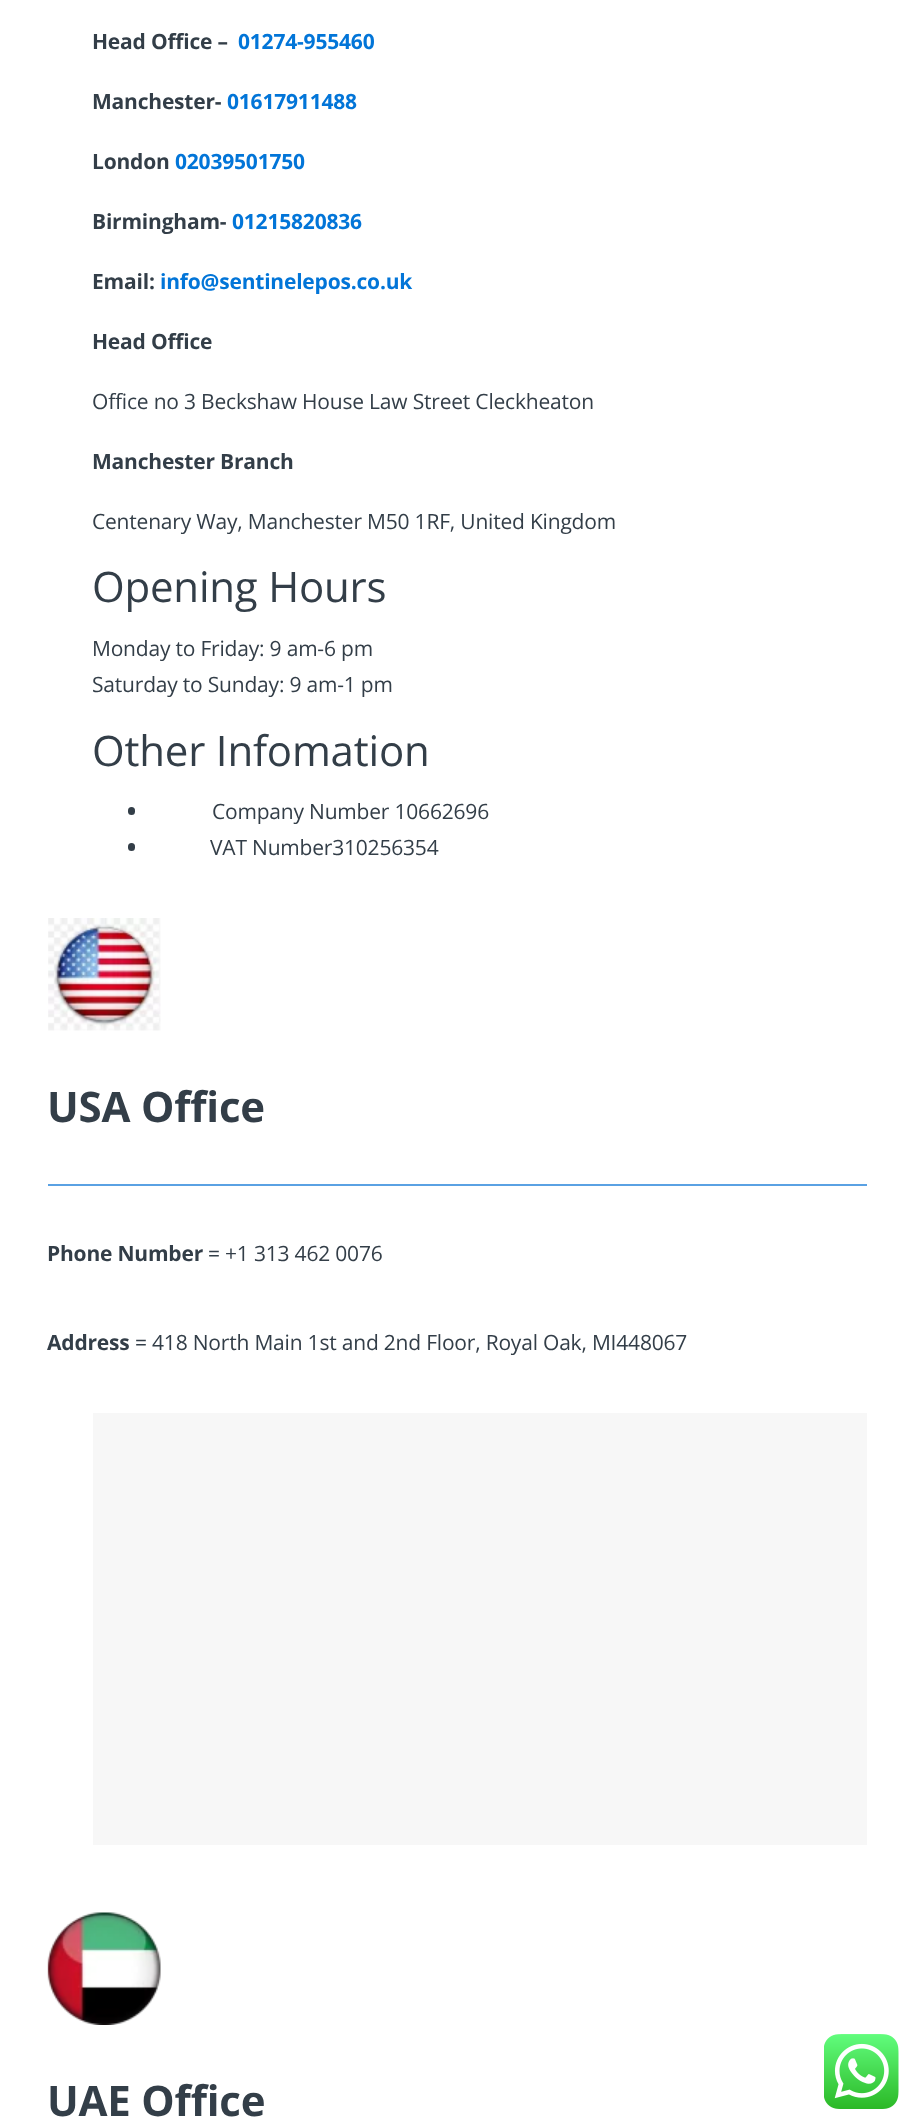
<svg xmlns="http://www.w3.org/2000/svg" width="913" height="2124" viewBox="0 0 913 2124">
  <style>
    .t1 { font: bold 21px Open Sans; letter-spacing: -0.2px; fill: #333e48; }
    .t2 { font: bold 21px Open Sans; letter-spacing: -0.2px; fill: #0275d8; }
    .t3 { font: 21px Open Sans; letter-spacing: -0.2px; fill: #333e48; }
    .t4 { font: 42px Open Sans; letter-spacing: -0.2px; fill: #333e48; }
    .t5 { font: bold 42px Open Sans; letter-spacing: -0.2px; fill: #333e48; }
  </style>
  <rect width="100%" height="100%" fill="#fff"/>
  <text x="92" y="49" class="t1">Head Office –</text>
  <text x="238" y="49" class="t2">01274-955460</text>
  <text x="92" y="109" class="t1">Manchester-</text>
  <text x="227" y="109" class="t2">01617911488</text>
  <text x="92" y="169" class="t1">London</text>
  <text x="175" y="169" class="t2">02039501750</text>
  <text x="92" y="229" class="t1">Birmingham-</text>
  <text x="232" y="229" class="t2">01215820836</text>
  <text x="92" y="289" class="t1">Email:</text>
  <text x="160" y="289" class="t2">info@sentinelepos.co.uk</text>
  <text x="92" y="349" class="t1">Head Office</text>
  <text x="92" y="409" class="t3">Office no 3 Beckshaw House Law Street Cleckheaton</text>
  <text x="92" y="469" class="t1">Manchester Branch</text>
  <text x="92" y="529" class="t3">Centenary Way, Manchester M50 1RF, United Kingdom</text>
  <text x="92" y="602" class="t4">Opening Hours</text>
  <text x="92" y="656" class="t3">Monday to Friday: 9 am-6 pm</text>
  <text x="92" y="692" class="t3">Saturday to Sunday: 9 am-1 pm</text>
  <text x="92" y="766" class="t4">Other Infomation</text>
  <rect x="128" y="807" width="7" height="8" rx="3.5" fill="#333e48"/>
  <text x="212" y="819" class="t3">Company Number 10662696</text>
  <rect x="128" y="843" width="7" height="8" rx="3.5" fill="#333e48"/>
  <text x="210" y="855" class="t3">VAT Number310256354</text>
  <image x="48" y="918" width="113" height="113" href="images/1.png"/>
  <text x="47" y="1122" class="t5">USA Office</text>
  <rect x="48" y="1184" width="819" height="2" fill="#5aa1e3"/>
  <text x="47" y="1261" class="t1">Phone Number</text>
  <text x="208" y="1261" class="t3">= +1 313 462 0076</text>
  <text x="47" y="1350" class="t1">Address</text>
  <text x="135" y="1350" class="t3">= 418 North Main 1st and 2nd Floor, Royal Oak, MI448067</text>
  <rect x="93" y="1413" width="774" height="432" fill="#f7f7f7"/>
  <image x="47" y="1912" width="114" height="113" href="images/2.png"/>
  <text x="47" y="2116" class="t5">UAE Office</text>
  <image x="824" y="2034" width="75" height="75" href="images/3.png"/>
</svg>
